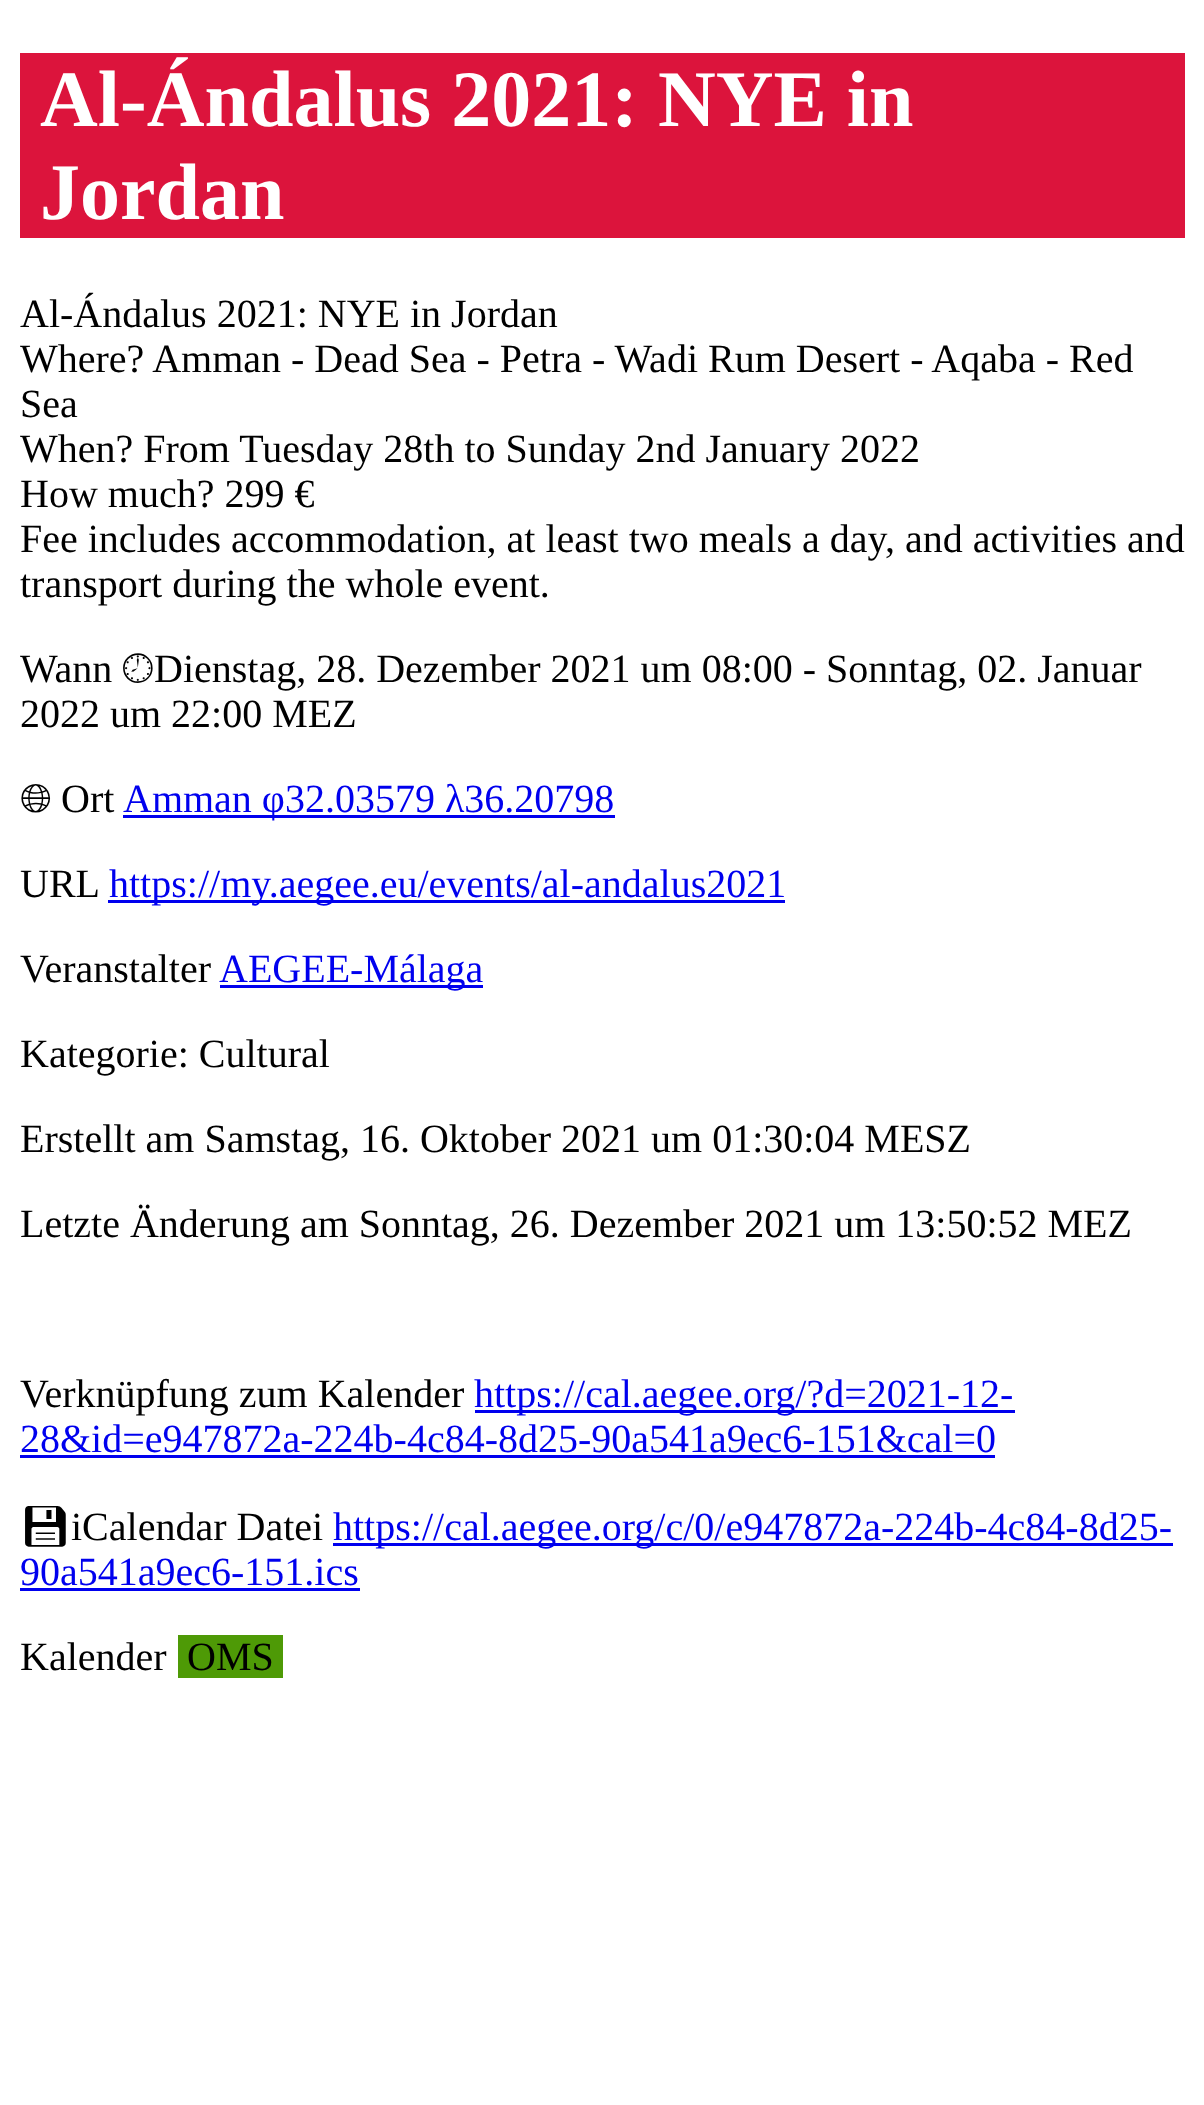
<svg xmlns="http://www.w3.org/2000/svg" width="1204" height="2105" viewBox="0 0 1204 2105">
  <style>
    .t1 { font: bold 80px Liberation Serif; fill: #fff; }
    .t2 { font: 40px Liberation Serif; fill: #000; }
    .t3 { font: 40px FreeSerif; fill: #000; }
    .t4 { font: 40px FreeSans; fill: #000; }
    .t5 { font: 40px Liberation Serif; fill: #00e; }
    .t6 { font: 40px Noto Emoji; fill: #000; }
  </style>
  <rect width="100%" height="100%" fill="#fff"/>
  <rect x="20" y="53" width="1165" height="185" fill="#dc143c"/>
  <text x="40" y="126" class="t1">Al-Ándalus 2021: NYE in</text>
  <text x="40" y="219" class="t1">Jordan</text>
  <text x="20" y="327" class="t2">Al-Ándalus 2021: NYE in Jordan</text>
  <text x="20" y="372" class="t2">Where? Amman - Dead Sea - Petra - Wadi Rum Desert - Aqaba - Red</text>
  <text x="20" y="417" class="t2">Sea</text>
  <text x="20" y="462" class="t2">When? From Tuesday 28th to Sunday 2nd January 2022</text>
  <text x="20" y="507" class="t2">How much? 299 €</text>
  <text x="20" y="552" class="t2">Fee includes accommodation, at least two meals a day, and activities and</text>
  <text x="20" y="597" class="t2">transport during the whole event.</text>
  <text x="20" y="682" class="t2">Wann</text>
  <text x="122" y="682" class="t3">🕗︎</text>
  <text x="154" y="682" class="t2">Dienstag, 28. Dezember 2021 um 08:00 - Sonntag, 02. Januar</text>
  <text x="20" y="727" class="t2">2022 um 22:00 MEZ</text>
  <text x="20" y="812" class="t4">🌐︎</text>
  <text x="61" y="812" class="t2">Ort</text>
  <rect x="123" y="815" width="492" height="3" fill="#00e"/>
  <text x="123" y="812" class="t5">Amman φ32.03579 λ36.20798</text>
  <text x="20" y="897" class="t2">URL</text>
  <rect x="108" y="900" width="677" height="3" fill="#00e"/>
  <text x="109" y="897" class="t5">https://my.aegee.eu/events/al-andalus2021</text>
  <text x="20" y="982" class="t2">Veranstalter</text>
  <rect x="220" y="985" width="263" height="3" fill="#00e"/>
  <text x="219" y="982" class="t5">AEGEE-Málaga</text>
  <text x="20" y="1067" class="t2">Kategorie: Cultural</text>
  <text x="20" y="1152" class="t2">Erstellt am Samstag, 16. Oktober 2021 um 01:30:04 MESZ</text>
  <text x="20" y="1237" class="t2">Letzte Änderung am Sonntag, 26. Dezember 2021 um 13:50:52 MEZ</text>
  <text x="20" y="1407" class="t2">Verknüpfung zum Kalender</text>
  <rect x="475" y="1410" width="540" height="3" fill="#00e"/>
  <text x="474" y="1407" class="t5">https://cal.aegee.org/?d=2021-12-</text>
  <text x="20" y="1452" class="t5">28&amp;id=e947872a-224b-4c84-8d25-90a541a9ec6-151&amp;cal=0</text>
  <rect x="20" y="1455" width="975" height="3" fill="#00e"/>
  <text x="20" y="1540" class="t6">💾︎</text>
  <text x="71" y="1540" class="t2">iCalendar Datei</text>
  <rect x="333" y="1543" width="840" height="3" fill="#00e"/>
  <text x="333" y="1540" class="t5">https://cal.aegee.org/c/0/e947872a-224b-4c84-8d25-</text>
  <text x="20" y="1585" class="t5">90a541a9ec6-151.ics</text>
  <rect x="20" y="1588" width="340" height="3" fill="#00e"/>
  <text x="20" y="1670" class="t2">Kalender</text>
  <rect x="178" y="1635" width="105" height="43" fill="#4e9a06"/>
  <text x="187" y="1670" class="t2">OMS</text>
</svg>
